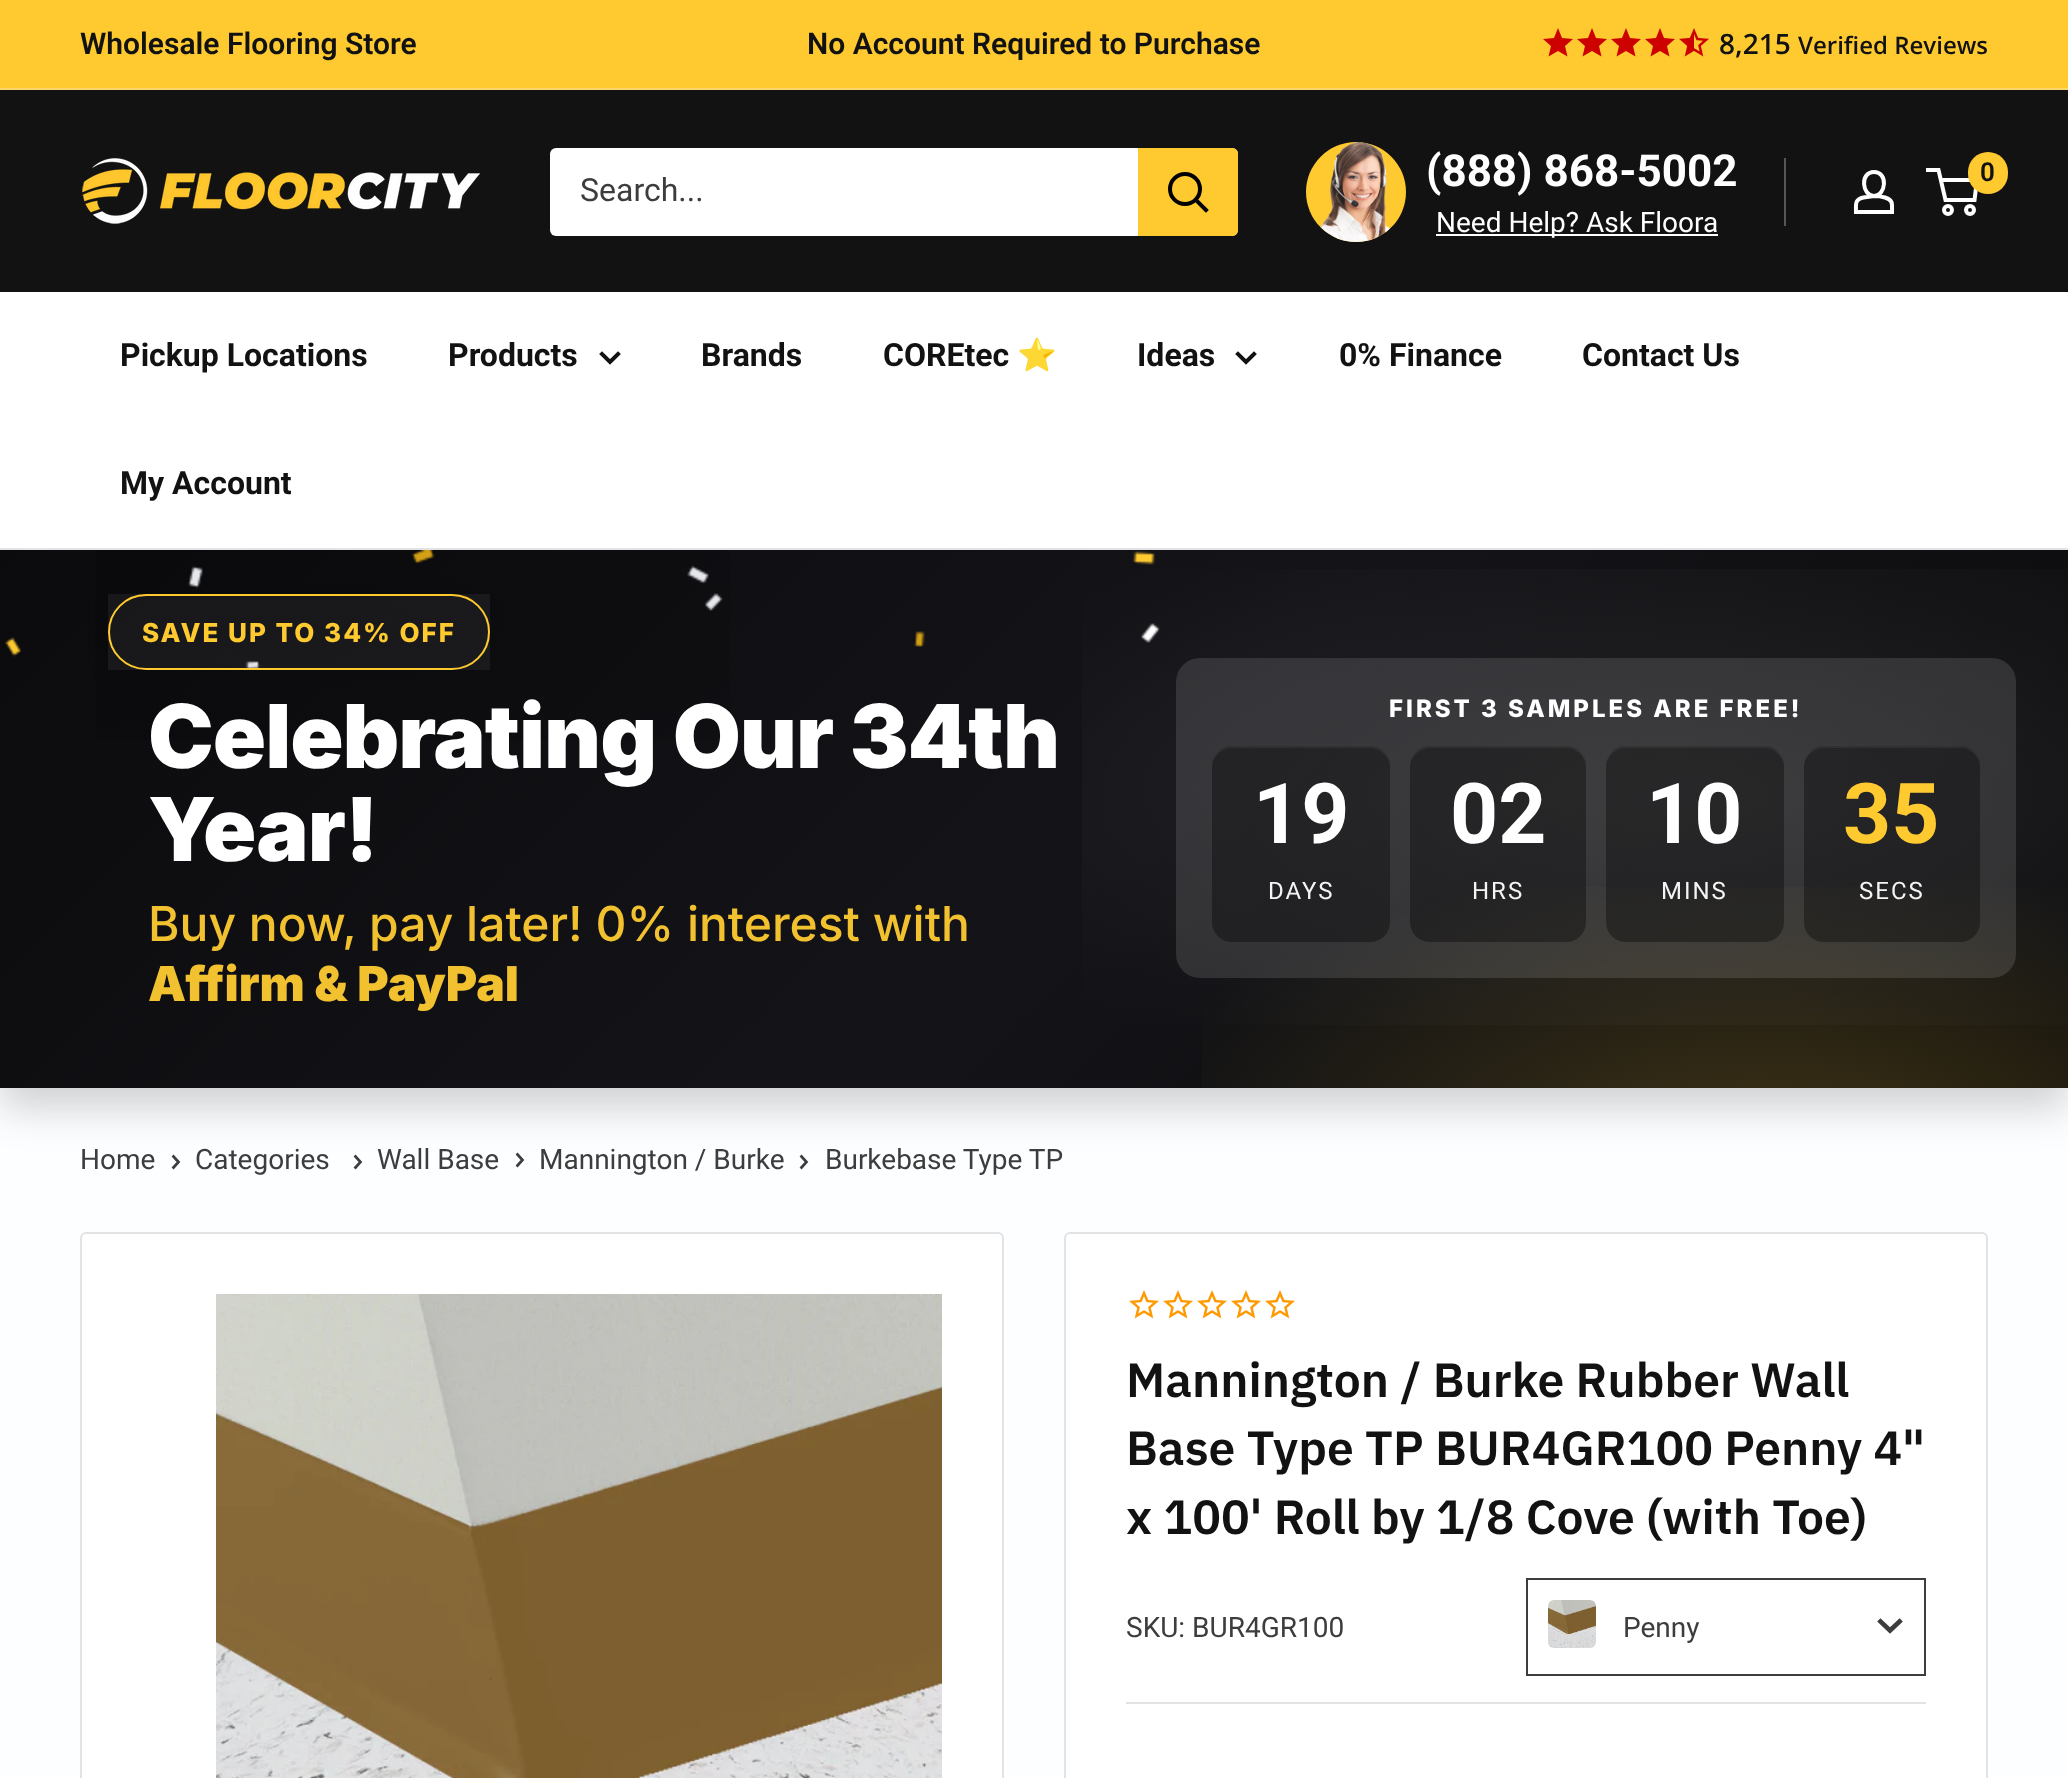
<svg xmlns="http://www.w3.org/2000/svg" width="2068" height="1778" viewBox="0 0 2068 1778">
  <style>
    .t1 { font: 600 30px Roboto; fill: #121212; }
    .t2 { font: 600 28px Open Sans; fill: #121212; }
    .t3 { font: 600 24px Open Sans; fill: #121212; }
    .t4 { font: 32px Roboto; fill: #3d3d3d; }
    .t5 { font: bold 44px Roboto; fill: #fff; }
    .t6 { font: 28px Roboto; fill: #fff; }
    .t7 { font: 600 26px Roboto; fill: #121212; }
    .t8 { font: bold 32px Roboto; fill: #121212; }
    .t9 { font: bold 32px Noto Color Emoji; fill: #121212; }
    .t10 { font: 800 26px Inter; letter-spacing: 2px; fill: #feca30; }
    .t11 { font: 900 88px Inter; letter-spacing: -1px; fill: #fff; }
    .t12 { font: 500 48px Inter; fill: #f2c12f; }
    .t13 { font: 900 48px Inter; fill: #f2c12f; }
    .t14 { font: 800 24px Inter; letter-spacing: 3px; fill: #fff; }
    .t15 { font: bold 84px Roboto; fill: #fff; }
    .t16 { font: 24px Roboto; letter-spacing: 2px; fill: #f4f4f4; }
    .t17 { font: bold 84px Roboto; fill: #feca30; }
    .t18 { font: 28px Roboto; fill: #3d3d3d; }
    .t19 { font: 600 48px IBM Plex Sans; fill: #121212; }
  </style>
  <defs>
    <linearGradient id="g1" gradientUnits="userSpaceOnUse" x1="382" y1="168" x2="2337" y2="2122"><stop offset="0" stop-color="#0b0b0e"/><stop offset="0.35" stop-color="#141418"/><stop offset="1" stop-color="#000"/></linearGradient>
    <radialGradient id="g2" gradientUnits="userSpaceOnUse" cx="0" cy="0" r="1" gradientTransform="matrix(1200 0 0 520 1778 1142)"><stop offset="0" stop-color="#feca30" stop-opacity="0.2"/><stop offset="0.55" stop-color="#feca30" stop-opacity="0"/></radialGradient>
    <radialGradient id="g3" gradientUnits="userSpaceOnUse" cx="0" cy="0" r="1" gradientTransform="matrix(1400 0 0 520 1696 797)"><stop offset="0" stop-color="#fff" stop-opacity="0.08"/><stop offset="0.6" stop-color="#fff" stop-opacity="0"/></radialGradient>
    <radialGradient id="g4" gradientUnits="userSpaceOnUse" cx="0" cy="0" r="1" gradientTransform="matrix(1800 0 0 560 331 625)"><stop offset="0" stop-color="#000" stop-opacity="0.22"/><stop offset="0.55" stop-color="#000" stop-opacity="0"/></radialGradient>
  </defs>
  <rect width="100%" height="100%" fill="#fcfeff"/>
  <rect x="0" y="0" width="2068" height="88" fill="#feca30"/>
  <rect x="0" y="88" width="2068" height="2" fill="#fbd76b"/>
  <text x="80" y="54" class="t1">Wholesale Flooring Store</text>
  <text x="807" y="54" class="t1">No Account Required to Purchase</text>
  <path d="M1558 51L1548.5 56.5L1551 46L1543 39L1554 38L1558 28L1562 38L1573 39L1565 46L1567.5 56.5Z" fill="#cc0100"/>
  <path d="M1592 51L1582.5 56.5L1585 46L1577 39L1588 38L1592 28L1596 38L1607 39L1599 46L1601.5 56.5Z" fill="#cc0100"/>
  <path d="M1626 51L1616.5 56.5L1619 46L1611 39L1622 38L1626 28L1630 38L1641 39L1633 46L1635.5 56.5Z" fill="#cc0100"/>
  <path d="M1660 51L1650.5 56.5L1653 46L1645 39L1656 38L1660 28L1664 38L1675 39L1667 46L1669.5 56.5Z" fill="#cc0100"/>
  <image x="1679" y="28" width="30" height="29" href="images/1.png"/>
  <text x="1719" y="54" class="t2">8,215</text>
  <text x="1798" y="54" class="t3">Verified Reviews</text>
  <rect x="0" y="90" width="2068" height="202" fill="#121212"/>
  <image x="82" y="158" width="398" height="66" href="images/2.png"/>
  <rect x="550" y="148" width="688" height="88" rx="6" fill="#fff"/>
  <text x="580" y="201" class="t4">Search...</text>
  <path d="M1138 148H1232C1235.5 148 1238 150.5 1238 154V230C1238 233.5 1235.5 236 1232 236H1138Z" fill="#feca30"/>
  <path d="M1206 210L1196 200" fill="none" stroke="#000" stroke-width="4" stroke-linecap="square"/>
  <circle cx="1185" cy="189" r="15" fill="none" stroke="#000" stroke-width="4"/>
  <circle cx="1356" cy="192" r="50" fill="#feca30"/>
  <image x="1320" y="142" width="70" height="100" href="images/3.png"/>
  <text x="1426" y="186" class="t5">(888) 868-5002</text>
  <rect x="1436" y="234" width="282" height="2" fill="#fff"/>
  <text x="1436" y="232" class="t6">Need Help? Ask Floora</text>
  <rect x="1784" y="158" width="2" height="68" fill="#565656"/>
  <path d="M1874 196C1878 196 1881.5 196.5 1885 197.5C1893.5 200 1892 204.5 1892 212H1856C1856 204 1854.5 199.5 1863.5 197.5ZM1874 196C1862 196 1859.5 172 1874 172C1888.5 172 1886 196 1874 196Z" fill="none" stroke="#fff" stroke-width="4"/>
  <circle cx="1948" cy="210" r="4" fill="none" stroke="#fff" stroke-width="4"/>
  <circle cx="1970" cy="210" r="4" fill="none" stroke="#fff" stroke-width="4"/>
  <path d="M1940.5 180H1977L1974.5 200H1945.5L1938.5 170H1926" fill="none" stroke="#fff" stroke-width="4"/>
  <rect x="1968" y="152" width="40" height="42" rx="20" fill="#feca30"/>
  <text x="1980" y="181" class="t7">0</text>
  <path d="M173.5 1156.5L178.5 1162L173.5 1167.5" fill="none" stroke="#3d3d3d" stroke-width="2.7" stroke-linecap="square"/>
  <path d="M355.5 1156.5L360.5 1162L355.5 1167.5" fill="none" stroke="#3d3d3d" stroke-width="2.7" stroke-linecap="square"/>
  <path d="M517.5 1154.5L522.5 1160L517.5 1165.5" fill="none" stroke="#3d3d3d" stroke-width="2.7" stroke-linecap="square"/>
  <path d="M801.5 1156.5L806.5 1162L801.5 1167.5" fill="none" stroke="#3d3d3d" stroke-width="2.7" stroke-linecap="square"/>
  <rect x="0" y="570" width="2068" height="538" fill="#0000002e" filter="blur(20px)"/>
  <rect x="0" y="292" width="2068" height="256" fill="#fff"/>
  <rect x="0" y="548" width="2068" height="2" fill="#e1e3e4"/>
  <text x="120" y="366" class="t8">Pickup Locations</text>
  <text x="448" y="366" class="t8">Products</text>
  <path d="M618 354L610 362L602 354" fill="none" stroke="#121212" stroke-width="4" stroke-linecap="square"/>
  <text x="701" y="366" class="t8">Brands</text>
  <text x="883" y="366" class="t8">COREtec</text>
  <text x="1017" y="366" class="t9">⭐️</text>
  <text x="1137" y="366" class="t8">Ideas</text>
  <path d="M1254 354L1246 362L1238 354" fill="none" stroke="#121212" stroke-width="4" stroke-linecap="square"/>
  <text x="1339" y="366" class="t8">0% Finance</text>
  <text x="1582" y="366" class="t8">Contact Us</text>
  <text x="120" y="494" class="t8">My Account</text>
  <rect x="0" y="550" width="2068" height="538" fill="url(#g1)"/>
  <rect x="1202" y="887" width="866" height="201" fill="url(#g2)"/>
  <rect x="1082" y="569" width="986" height="456" fill="url(#g3)"/>
  <rect x="95" y="550" width="636" height="190" fill="url(#g4)"/>
  <image x="5" y="550" width="1155" height="118" href="images/4.png"/>
  <rect x="108" y="594" width="382" height="76" fill="#ffffff0f"/>
  <rect x="109" y="595" width="380" height="74" rx="37" fill="none" stroke="#feca30" stroke-width="2"/>
  <text x="142" y="642" class="t10">SAVE UP TO 34% OFF</text>
  <text x="148" y="768" class="t11">Celebrating Our 34th</text>
  <text x="148" y="861" class="t11">Year!</text>
  <text x="148" y="941" class="t12">Buy now, pay later! 0% interest with</text>
  <text x="148" y="1001" class="t13">Affirm &amp; PayPal</text>
  <rect x="1176" y="658" width="840" height="320" rx="24" fill="#ffffff1f"/>
  <text x="1389" y="717" class="t14">FIRST 3 SAMPLES ARE FREE!</text>
  <rect x="1212" y="746" width="178" height="196" rx="20" fill="#00000059"/>
  <path d="M1232 748H1370C1381 748 1390 757 1390 768C1390 742 1366 746 1347 746H1255C1236 746 1212 742 1212 768C1212 757 1221 748 1232 748Z" fill="#ffffff0f"/>
  <text x="1253" y="843" class="t15">19</text>
  <text x="1268" y="899" class="t16">DAYS</text>
  <rect x="1410" y="746" width="176" height="196" rx="20" fill="#00000059"/>
  <path d="M1430 748H1566C1577 748 1586 757 1586 768C1586 742 1562 746 1543 746H1453C1434 746 1410 742 1410 768C1410 757 1419 748 1430 748Z" fill="#ffffff0f"/>
  <text x="1450" y="843" class="t15">02</text>
  <text x="1472" y="899" class="t16">HRS</text>
  <rect x="1606" y="746" width="178" height="196" rx="20" fill="#00000059"/>
  <path d="M1626 748H1764C1775 748 1784 757 1784 768C1784 742 1760 746 1741 746H1649C1630 746 1606 742 1606 768C1606 757 1615 748 1626 748Z" fill="#ffffff0f"/>
  <text x="1646" y="843" class="t15">10</text>
  <text x="1661" y="899" class="t16">MINS</text>
  <rect x="1804" y="746" width="176" height="196" rx="20" fill="#00000059"/>
  <path d="M1824 748H1960C1971 748 1980 757 1980 768C1980 742 1956 746 1937 746H1847C1828 746 1804 742 1804 768C1804 757 1813 748 1824 748Z" fill="#ffffff0f"/>
  <text x="1843" y="843" class="t17">35</text>
  <text x="1859" y="899" class="t16">SECS</text>
  <text x="80" y="1169" class="t18">Home</text>
  <text x="195" y="1169" class="t18">Categories</text>
  <text x="377" y="1169" class="t18">Wall Base</text>
  <text x="539" y="1169" class="t18">Mannington / Burke</text>
  <text x="825" y="1169" class="t18">Burkebase Type TP</text>
  <rect x="81" y="1233" width="922" height="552" rx="5" fill="#fff" stroke="#e1e3e4" stroke-width="2"/>
  <image x="216" y="1294" width="726" height="484" href="images/5.png"/>
  <rect x="1065" y="1233" width="922" height="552" rx="5" fill="#fff" stroke="#e1e3e4" stroke-width="2"/>
  <image x="1129" y="1290" width="30" height="29" href="images/6.png"/>
  <image x="1163" y="1290" width="30" height="29" href="images/6.png"/>
  <image x="1197" y="1290" width="30" height="29" href="images/6.png"/>
  <image x="1231" y="1290" width="30" height="29" href="images/6.png"/>
  <image x="1265" y="1290" width="30" height="29" href="images/6.png"/>
  <text x="1126" y="1397" class="t19">Mannington / Burke Rubber Wall</text>
  <text x="1126" y="1465" class="t19">Base Type TP BUR4GR100 Penny 4"</text>
  <text x="1126" y="1534" class="t19">x 100' Roll by 1/8 Cove (with Toe)</text>
  <text x="1126" y="1637" class="t18">SKU: BUR4GR100</text>
  <rect x="1527" y="1579" width="398" height="96" fill="none" stroke="#3d3d3d" stroke-width="2"/>
  <image x="1548" y="1600" width="48" height="48" href="images/7.png"/>
  <text x="1623" y="1637" class="t18">Penny</text>
  <path d="M1899.5 1621.5L1890 1630.5L1880.5 1621.5" fill="none" stroke="#3d3d3d" stroke-width="4.7" stroke-linecap="square"/>
  <rect x="1126" y="1702" width="800" height="2" fill="#e1e3e4"/>
</svg>
